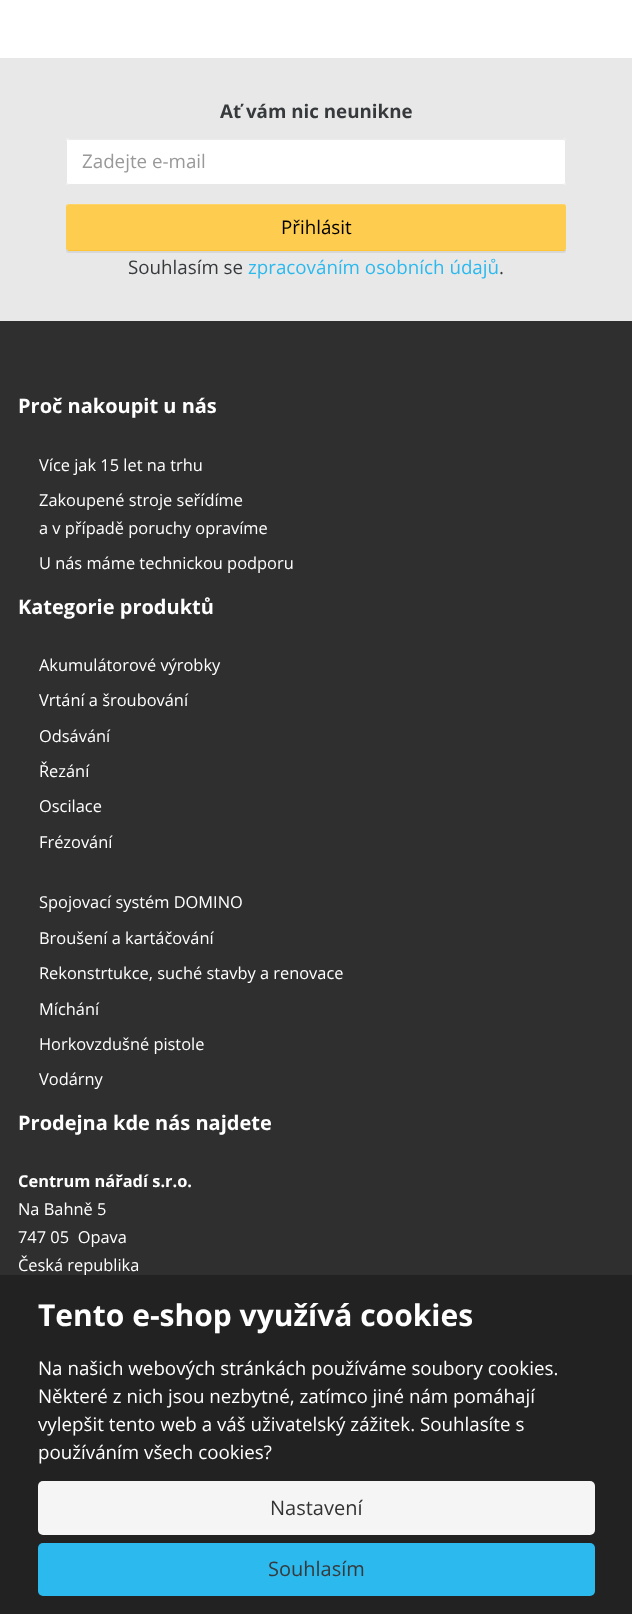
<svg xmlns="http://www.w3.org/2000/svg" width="632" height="1614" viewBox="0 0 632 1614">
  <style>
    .t1 { font: bold 18.75px Open Sans; fill: #373a3c; }
    .t2 { font: 18.75px Open Sans; fill: #999; }
    .t3 { font: 18.75px Open Sans; fill: #000; }
    .t4 { font: 18.75px Open Sans; fill: #373a3c; }
    .t5 { font: 18.75px Open Sans; fill: #2cb9ee; }
    .t6 { font: bold 20px Open Sans; fill: #fff; }
    .t7 { font: 16.4px Open Sans; fill: #fff; }
    .t8 { font: bold 16.4px Open Sans; fill: #fff; }
    .t9 { font: bold 30px Open Sans; fill: #fff; }
    .t10 { font: 18.75px Open Sans; fill: #fff; }
    .t11 { font: 20px Open Sans; fill: #333; }
    .t12 { font: 20px Open Sans; fill: #373a3c; }
  </style>
  <rect width="100%" height="100%" fill="#fff"/>
  <rect x="0" y="58" width="632" height="263" fill="#e8e8e8"/>
  <text x="220" y="118" class="t1">Ať vám nic neunikne</text>
  <rect x="66" y="138" width="500" height="47" rx="2.5" fill="#fff"/>
  <path d="M69 140H564L565 141V139H69C68 139 68 140 68 141Z" fill="#ececec"/>
  <rect x="66.5" y="138.5" width="499" height="46" rx="2" fill="none" stroke="#e8e8e8"/>
  <text x="82" y="168" class="t2">Zadejte e-mail</text>
  <rect x="66" y="205" width="500" height="48" rx="2.5" fill="#00000012" filter="blur(0.5px)"/>
  <path d="M69 204H564C565 204 566 205 566 206V249C566 249 565 250 564 250H69C67 250 66 249 66 249V206C66 205 67 204 69 204Z" fill="#fecc4e"/>
  <path d="M69 205H564C565 205 566 206 566 208V249V213C566 212 568 204 564 204H69C67 204 66 205 66 207C67 206 68 205 69 205Z" fill="#ffffff26"/>
  <rect x="68" y="250" width="497" height="1" fill="#fec535"/>
  <text x="281" y="234" class="t3">Přihlásit</text>
  <text x="128" y="274" class="t4">Souhlasím se</text>
  <text x="248" y="274" class="t5">zpracováním osobních údajů</text>
  <text x="499" y="274" class="t4">.</text>
  <rect x="0" y="321" width="632" height="954" fill="#2f2f2f"/>
  <text x="18" y="413" class="t6">Proč nakoupit u nás</text>
  <text x="39" y="471" class="t7">Více jak 15 let na trhu</text>
  <text x="39" y="506" class="t7">Zakoupené stroje seřídíme</text>
  <text x="39" y="534" class="t7">a v případě poruchy opravíme</text>
  <text x="39" y="569" class="t7">U nás máme technickou podporu</text>
  <text x="18" y="614" class="t6">Kategorie produktů</text>
  <text x="39" y="671" class="t7">Akumulátorové výrobky</text>
  <text x="39" y="706" class="t7">Vrtání a šroubování</text>
  <text x="39" y="742" class="t7">Odsávání</text>
  <text x="39" y="777" class="t7">Řezání</text>
  <text x="39" y="812" class="t7">Oscilace</text>
  <text x="39" y="848" class="t7">Frézování</text>
  <text x="39" y="908" class="t7">Spojovací systém DOMINO</text>
  <text x="39" y="944" class="t7">Broušení a kartáčování</text>
  <text x="39" y="979" class="t7">Rekonstrtukce, suché stavby a renovace</text>
  <text x="39" y="1015" class="t7">Míchání</text>
  <text x="39" y="1050" class="t7">Horkovzdušné pistole</text>
  <text x="39" y="1085" class="t7">Vodárny</text>
  <text x="18" y="1130" class="t6">Prodejna kde nás najdete</text>
  <text x="18" y="1187" class="t8">Centrum nářadí s.r.o.</text>
  <text x="18" y="1215" class="t7">Na Bahně 5</text>
  <text x="18" y="1243" class="t7" xml:space="preserve">747 05  Opava</text>
  <text x="18" y="1271" class="t7">Česká republika</text>
  <rect x="0" y="1275" width="632" height="339" fill="#222"/>
  <text x="38" y="1326" class="t9">Tento e-shop využívá cookies</text>
  <text x="38" y="1375" class="t10">Na našich webových stránkách používáme soubory cookies.</text>
  <text x="38" y="1403" class="t10">Některé z nich jsou nezbytné, zatímco jiné nám pomáhají</text>
  <text x="38" y="1431" class="t10">vylepšit tento web a váš uživatelský zážitek. Souhlasíte s</text>
  <text x="38" y="1459" class="t10">používáním všech cookies?</text>
  <rect x="38" y="1481" width="557" height="54" rx="5" fill="#f5f5f5"/>
  <text x="270" y="1515" class="t11">Nastavení</text>
  <rect x="38" y="1543" width="557" height="53" rx="5" fill="#2cb9ee"/>
  <text x="268" y="1576" class="t12">Souhlasím</text>
</svg>
